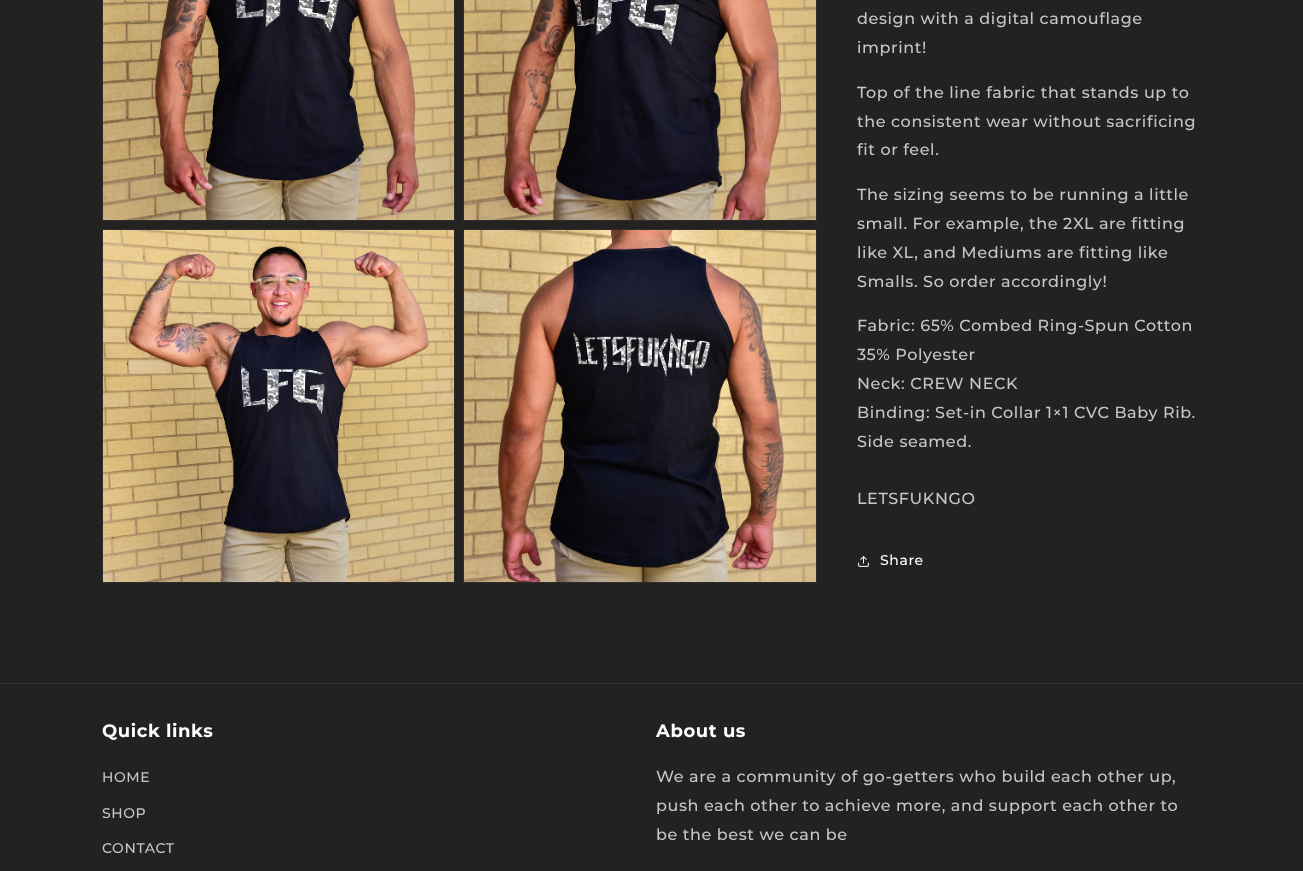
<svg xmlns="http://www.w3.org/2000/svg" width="1303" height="871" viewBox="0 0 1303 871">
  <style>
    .t1 { font: 500 16px Montserrat; letter-spacing: 0.6px; fill: #c7c6c5; }
    .t2 { font: 500 14px Montserrat; letter-spacing: 0.6px; fill: #fefdfc; }
    .t3 { font: bold 18px Montserrat; letter-spacing: 0.6px; fill: #fefdfc; }
    .t4 { font: 500 14px Montserrat; letter-spacing: 0.6px; fill: #c7c6c5; }
  </style>
  <rect width="100%" height="100%" fill="#232221"/>
  <rect x="102.5" y="-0.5" width="352" height="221" fill="none" stroke="#2e2d2c"/>
  <image x="103" y="0" width="351" height="220" href="images/1.png"/>
  <rect x="463.5" y="-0.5" width="353" height="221" fill="none" stroke="#2e2d2c"/>
  <image x="464" y="0" width="352" height="220" href="images/2.png"/>
  <rect x="102.5" y="229.5" width="352" height="353" fill="none" stroke="#2e2d2c"/>
  <image x="103" y="230" width="351" height="352" href="images/3.png"/>
  <rect x="463.5" y="229.5" width="353" height="353" fill="none" stroke="#2e2d2c"/>
  <image x="464" y="230" width="352" height="352" href="images/4.png"/>
  <text x="857" y="24" class="t1">design with a digital camouflage</text>
  <text x="857" y="53" class="t1">imprint!</text>
  <text x="857" y="98" class="t1">Top of the line fabric that stands up to</text>
  <text x="857" y="127" class="t1">the consistent wear without sacrificing</text>
  <text x="857" y="155" class="t1">fit or feel.</text>
  <text x="857" y="200" class="t1">The sizing seems to be running a little</text>
  <text x="857" y="229" class="t1">small. For example, the 2XL are fitting</text>
  <text x="857" y="258" class="t1">like XL, and Mediums are fitting like</text>
  <text x="857" y="287" class="t1">Smalls. So order accordingly!</text>
  <text x="857" y="331" class="t1">Fabric: 65% Combed Ring-Spun Cotton</text>
  <text x="857" y="360" class="t1">35% Polyester</text>
  <text x="857" y="389" class="t1">Neck: CREW NECK</text>
  <text x="857" y="418" class="t1">Binding: Set-in Collar 1×1 CVC Baby Rib.</text>
  <text x="857" y="447" class="t1">Side seamed.</text>
  <text x="857" y="504" class="t1">LETSFUKNGO</text>
  <image x="858" y="556" width="11" height="11" href="images/5.png"/>
  <text x="880" y="565" class="t2">Share</text>
  <rect x="0" y="683" width="1303" height="1" fill="#353433"/>
  <text x="102" y="737" class="t3">Quick links</text>
  <text x="102" y="782" class="t4">HOME</text>
  <text x="102" y="818" class="t4">SHOP</text>
  <text x="102" y="853" class="t4">CONTACT</text>
  <text x="656" y="737" class="t3">About us</text>
  <text x="656" y="782" class="t1">We are a community of go-getters who build each other up,</text>
  <text x="656" y="811" class="t1">push each other to achieve more, and support each other to</text>
  <text x="656" y="840" class="t1">be the best we can be</text>
</svg>
